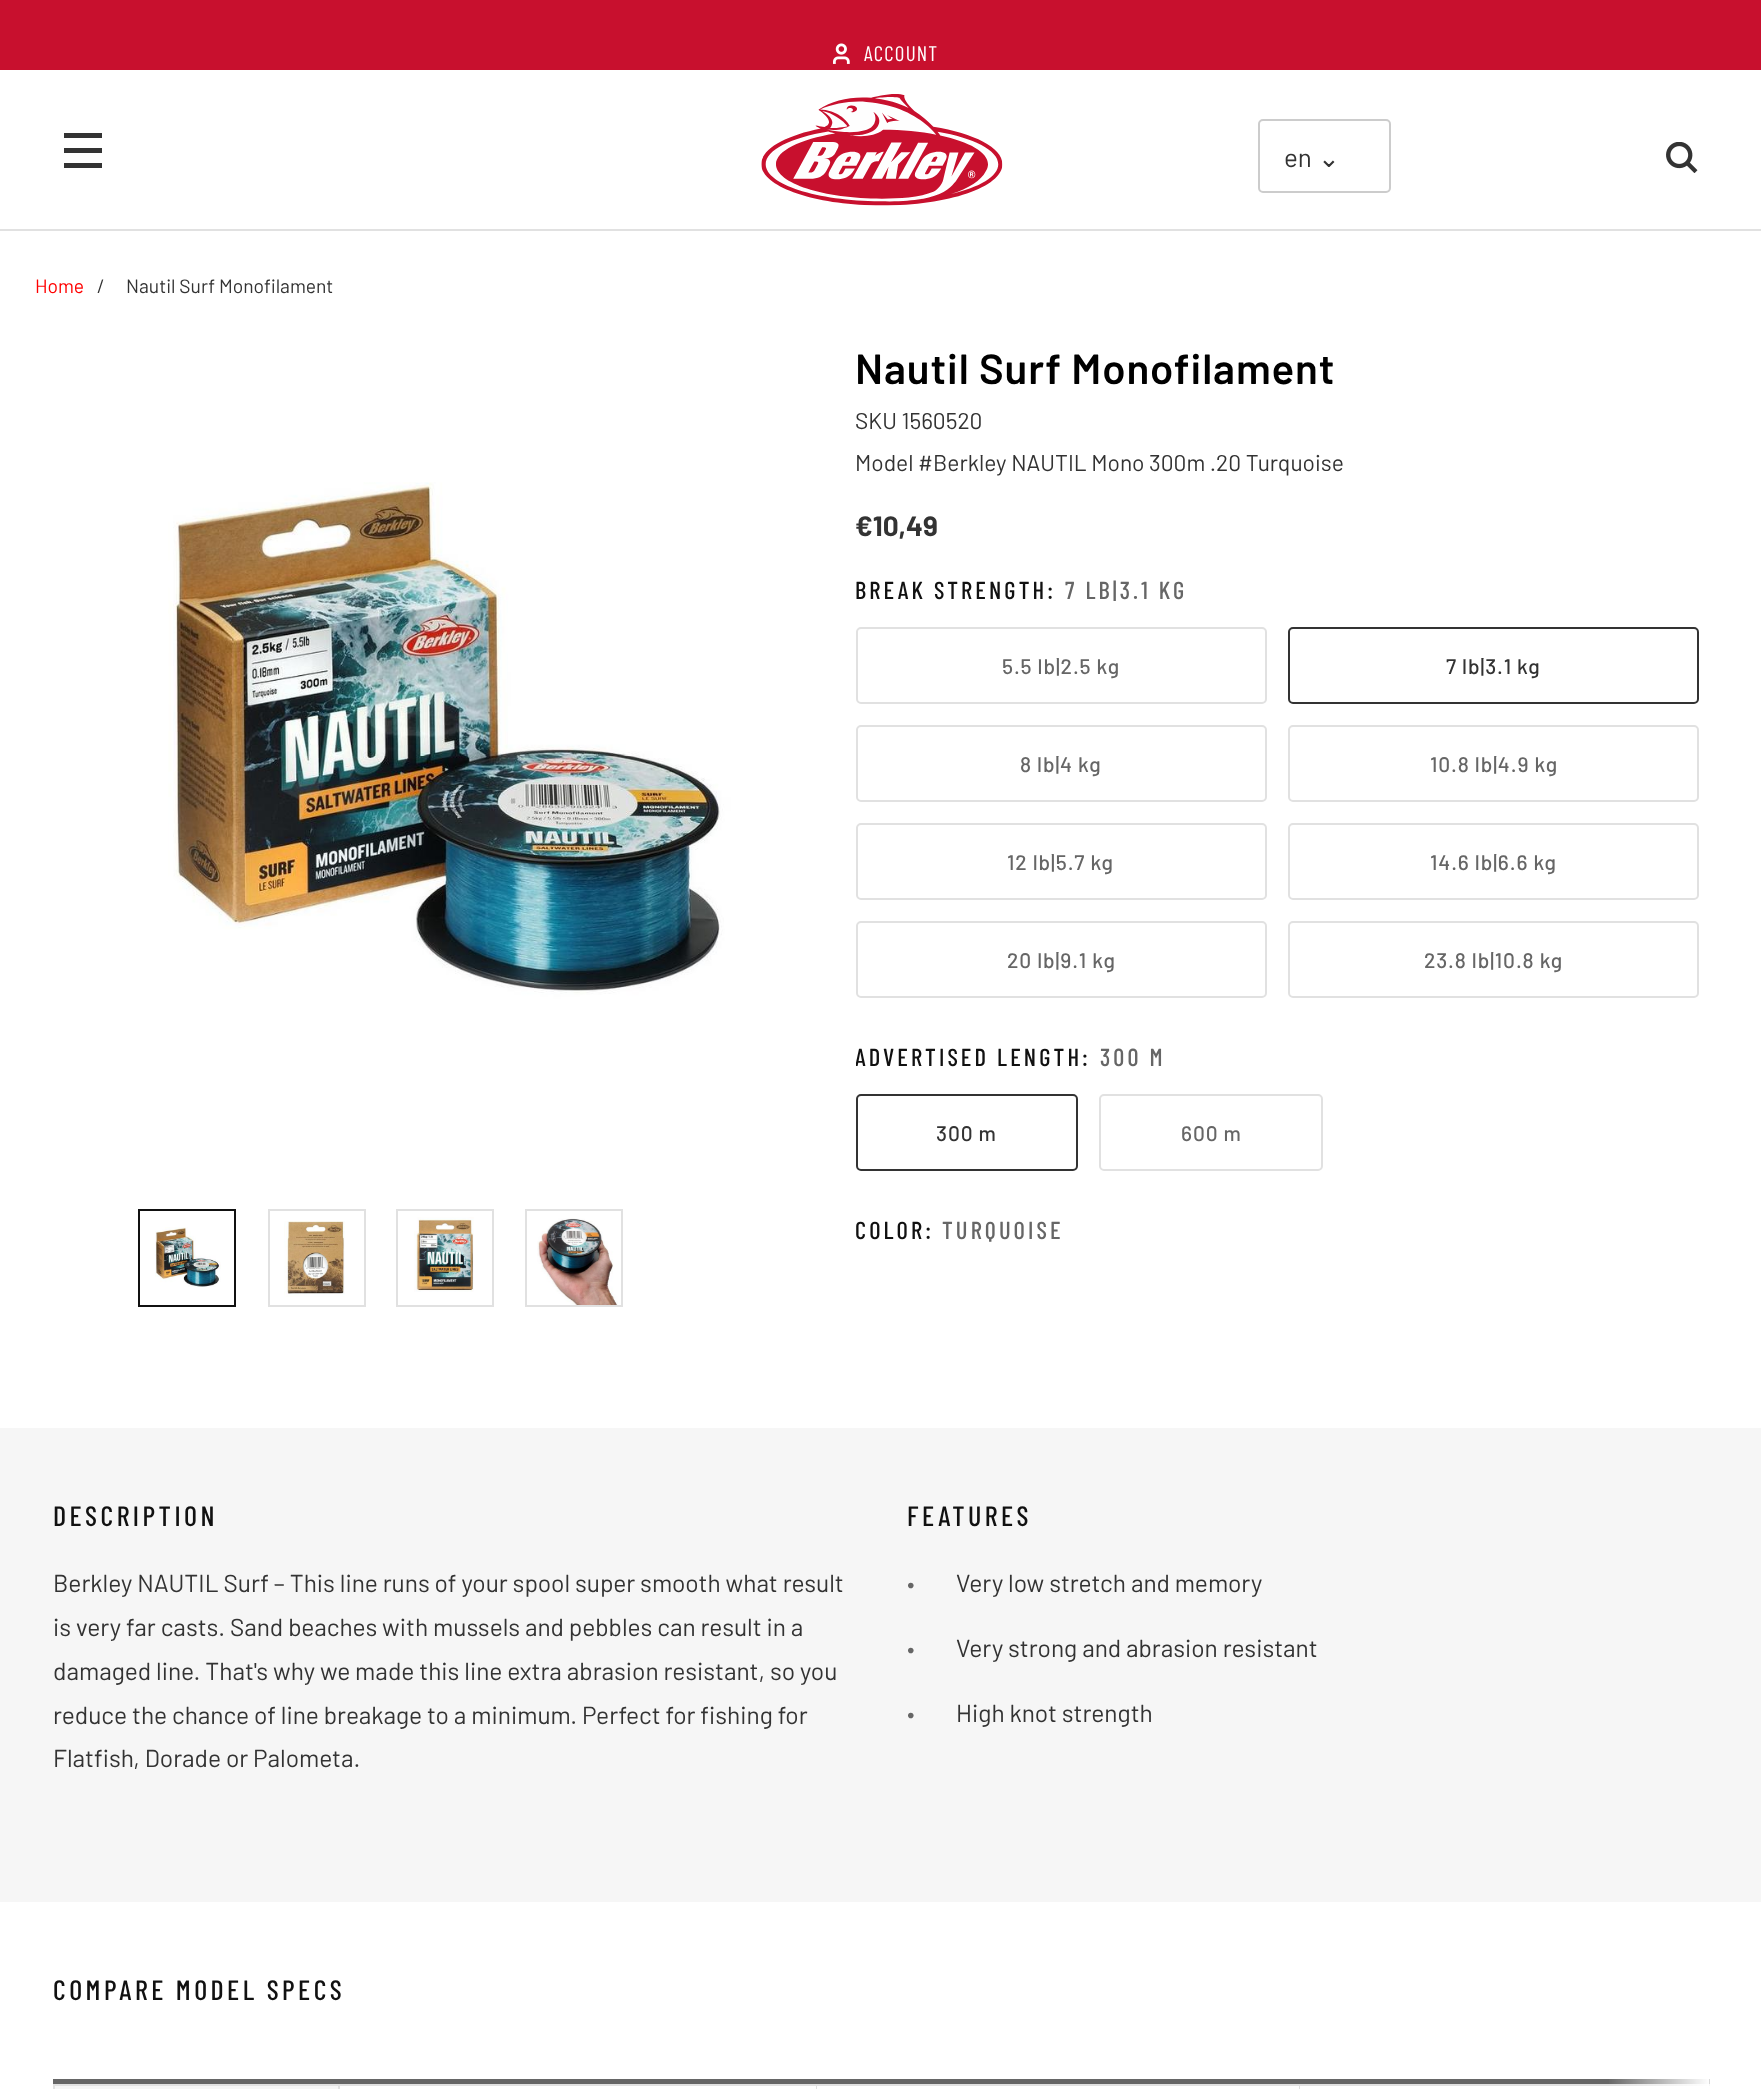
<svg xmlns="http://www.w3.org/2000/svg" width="1761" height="2089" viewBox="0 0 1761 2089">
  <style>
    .t1 { font: 21px Barlow Condensed; letter-spacing: 1.25px; fill: #fff; }
    .t2 { font: 26px Barlow; fill: #333; }
    .t3 { font: 26px DejaVu Sans; fill: #333; }
    .t4 { font: 19.25px Barlow; fill: #f00; }
    .t5 { font: 19.25px Barlow; fill: #333; }
    .t6 { font: 500 24.5px Barlow Condensed; letter-spacing: 3.1px; fill: #111; }
    .t7 { font: 600 42px Barlow; letter-spacing: 0.9px; fill: #000; }
    .t8 { font: 22.75px Barlow; fill: #333; }
    .t9 { font: bold 28px Barlow; fill: #333; }
    .t10 { font: 500 24.5px Barlow Condensed; letter-spacing: 3.1px; fill: #666; }
    .t11 { font: 500 21px Barlow; letter-spacing: 0.9px; fill: #666; }
    .t12 { font: 500 21px Barlow; letter-spacing: 0.9px; fill: #333; }
    .t13 { font: 500 28px Barlow Condensed; letter-spacing: 3.5px; fill: #111; }
    .t14 { font: 24.5px Barlow; fill: #333; }
    .t15 { font: 24.5px Barlow; fill: #666; }
  </style>
  <rect width="100%" height="100%" fill="#fff"/>
  <rect x="0" y="229" width="1761" height="2" fill="#e1e1e1"/>
  <rect x="0" y="0" width="1761" height="70" fill="#c8102e"/>
  <image x="833" y="43" width="17" height="21" href="images/1.png"/>
  <text x="864" y="61" class="t1">ACCOUNT</text>
  <image x="761" y="94" width="242" height="112" href="images/2.png"/>
  <path d="M64 133V138H102V133ZM64 153H102V148H64ZM64 168H102V163H64Z" fill="#333"/>
  <rect x="1259" y="120" width="131" height="72" rx="4" fill="none" stroke="#ccc" stroke-width="2"/>
  <text x="1284" y="167" class="t2">en</text>
  <text x="1318" y="167" class="t3">⌄</text>
  <image x="1666" y="142" width="32" height="31" href="images/3.png"/>
  <text x="35" y="293" class="t4">Home</text>
  <text x="97" y="293" class="t5">/</text>
  <text x="126" y="293" class="t5">Nautil Surf Monofilament</text>
  <text x="855" y="1066" class="t6">ADVERTISED LENGTH:</text>
  <image x="168" y="482" width="688" height="584" href="images/4.png"/>
  <image x="155" y="1227" width="66" height="60" href="images/5.png"/>
  <rect x="139" y="1210" width="96" height="96" fill="none" stroke="#111" stroke-width="2"/>
  <image x="284" y="1221" width="61" height="76" href="images/6.png"/>
  <rect x="269" y="1210" width="96" height="96" fill="none" stroke="#e1e1e1" stroke-width="2"/>
  <image x="414" y="1217" width="60" height="75" href="images/7.png"/>
  <rect x="397" y="1210" width="96" height="96" fill="none" stroke="#e1e1e1" stroke-width="2"/>
  <image x="537" y="1218" width="81" height="87" href="images/8.png"/>
  <rect x="526" y="1210" width="96" height="96" fill="none" stroke="#e1e1e1" stroke-width="2"/>
  <text x="855" y="384" class="t7">Nautil Surf Monofilament</text>
  <text x="855" y="429" class="t8">SKU 1560520</text>
  <text x="855" y="471" class="t8">Model #Berkley NAUTIL Mono 300m .20 Turquoise</text>
  <text x="855" y="536" class="t9">€10,49</text>
  <text x="855" y="599" class="t6">BREAK STRENGTH:</text>
  <text x="1065" y="599" class="t10">7 LB|3.1 KG</text>
  <rect x="857" y="628" width="409" height="75" rx="4" fill="none" stroke="#e1e1e1" stroke-width="2"/>
  <text x="1002" y="674" class="t11">5.5 lb|2.5 kg</text>
  <rect x="1289" y="628" width="409" height="75" rx="4" fill="none" stroke="#333" stroke-width="2"/>
  <text x="1446" y="674" class="t12">7 lb|3.1 kg</text>
  <rect x="857" y="726" width="409" height="75" rx="4" fill="none" stroke="#e1e1e1" stroke-width="2"/>
  <text x="1020" y="772" class="t11">8 lb|4 kg</text>
  <rect x="1289" y="726" width="409" height="75" rx="4" fill="none" stroke="#e1e1e1" stroke-width="2"/>
  <text x="1430" y="772" class="t11">10.8 lb|4.9 kg</text>
  <rect x="857" y="824" width="409" height="75" rx="4" fill="none" stroke="#e1e1e1" stroke-width="2"/>
  <text x="1007" y="870" class="t11">12 lb|5.7 kg</text>
  <rect x="1289" y="824" width="409" height="75" rx="4" fill="none" stroke="#e1e1e1" stroke-width="2"/>
  <text x="1430" y="870" class="t11">14.6 lb|6.6 kg</text>
  <rect x="857" y="922" width="409" height="75" rx="4" fill="none" stroke="#e1e1e1" stroke-width="2"/>
  <text x="1007" y="968" class="t11">20 lb|9.1 kg</text>
  <rect x="1289" y="922" width="409" height="75" rx="4" fill="none" stroke="#e1e1e1" stroke-width="2"/>
  <text x="1424" y="968" class="t11">23.8 lb|10.8 kg</text>
  <text x="1100" y="1066" class="t10">300 M</text>
  <rect x="857" y="1095" width="220" height="75" rx="4" fill="none" stroke="#333" stroke-width="2"/>
  <text x="936" y="1141" class="t12">300 m</text>
  <rect x="1100" y="1095" width="222" height="75" rx="4" fill="none" stroke="#e1e1e1" stroke-width="2"/>
  <text x="1181" y="1141" class="t11">600 m</text>
  <text x="855" y="1239" class="t6">COLOR:</text>
  <text x="942" y="1239" class="t10">TURQUOISE</text>
  <rect x="0" y="1428" width="1761" height="474" fill="#f6f6f6"/>
  <text x="53" y="1526" class="t13">DESCRIPTION</text>
  <text x="53" y="1592" class="t14">Berkley NAUTIL Surf – This line runs of your spool super smooth what result</text>
  <text x="53" y="1636" class="t14">is very far casts. Sand beaches with mussels and pebbles can result in a</text>
  <text x="53" y="1680" class="t14">damaged line. That's why we made this line extra abrasion resistant, so you</text>
  <text x="53" y="1724" class="t14">reduce the chance of line breakage to a minimum. Perfect for fishing for</text>
  <text x="53" y="1767" class="t14">Flatfish, Dorade or Palometa.</text>
  <text x="907" y="1526" class="t13">FEATURES</text>
  <text x="907" y="1592" class="t15">•</text>
  <text x="956" y="1592" class="t14">Very low stretch and memory</text>
  <text x="907" y="1657" class="t15">•</text>
  <text x="956" y="1657" class="t14">Very strong and abrasion resistant</text>
  <text x="907" y="1722" class="t15">•</text>
  <text x="956" y="1722" class="t14">High knot strength</text>
  <text x="53" y="2000" class="t13">COMPARE MODEL SPECS</text>
  <rect x="53" y="2079" width="1657" height="5" fill="#666"/>
  <rect x="54" y="2086" width="284" height="3" fill="#f6f6f6"/>
  <rect x="53" y="2084" width="1247" height="2" fill="#e1e1e1"/>
  <rect x="53" y="2084" width="2" height="5" fill="#e1e1e1"/>
  <rect x="1300" y="2084" width="410" height="2" fill="#e1e1e1"/>
  <rect x="338" y="2084" width="2" height="5" fill="#e1e1e1"/>
  <rect x="816" y="2084" width="1" height="5" fill="#e1e1e1"/>
  <rect x="1299" y="2084" width="2" height="5" fill="#e1e1e1"/>
  <rect x="1300" y="2086" width="1" height="3" fill="#fff"/>
  <image x="1609" y="2079" width="101" height="10" href="images/9.png"/>
</svg>
